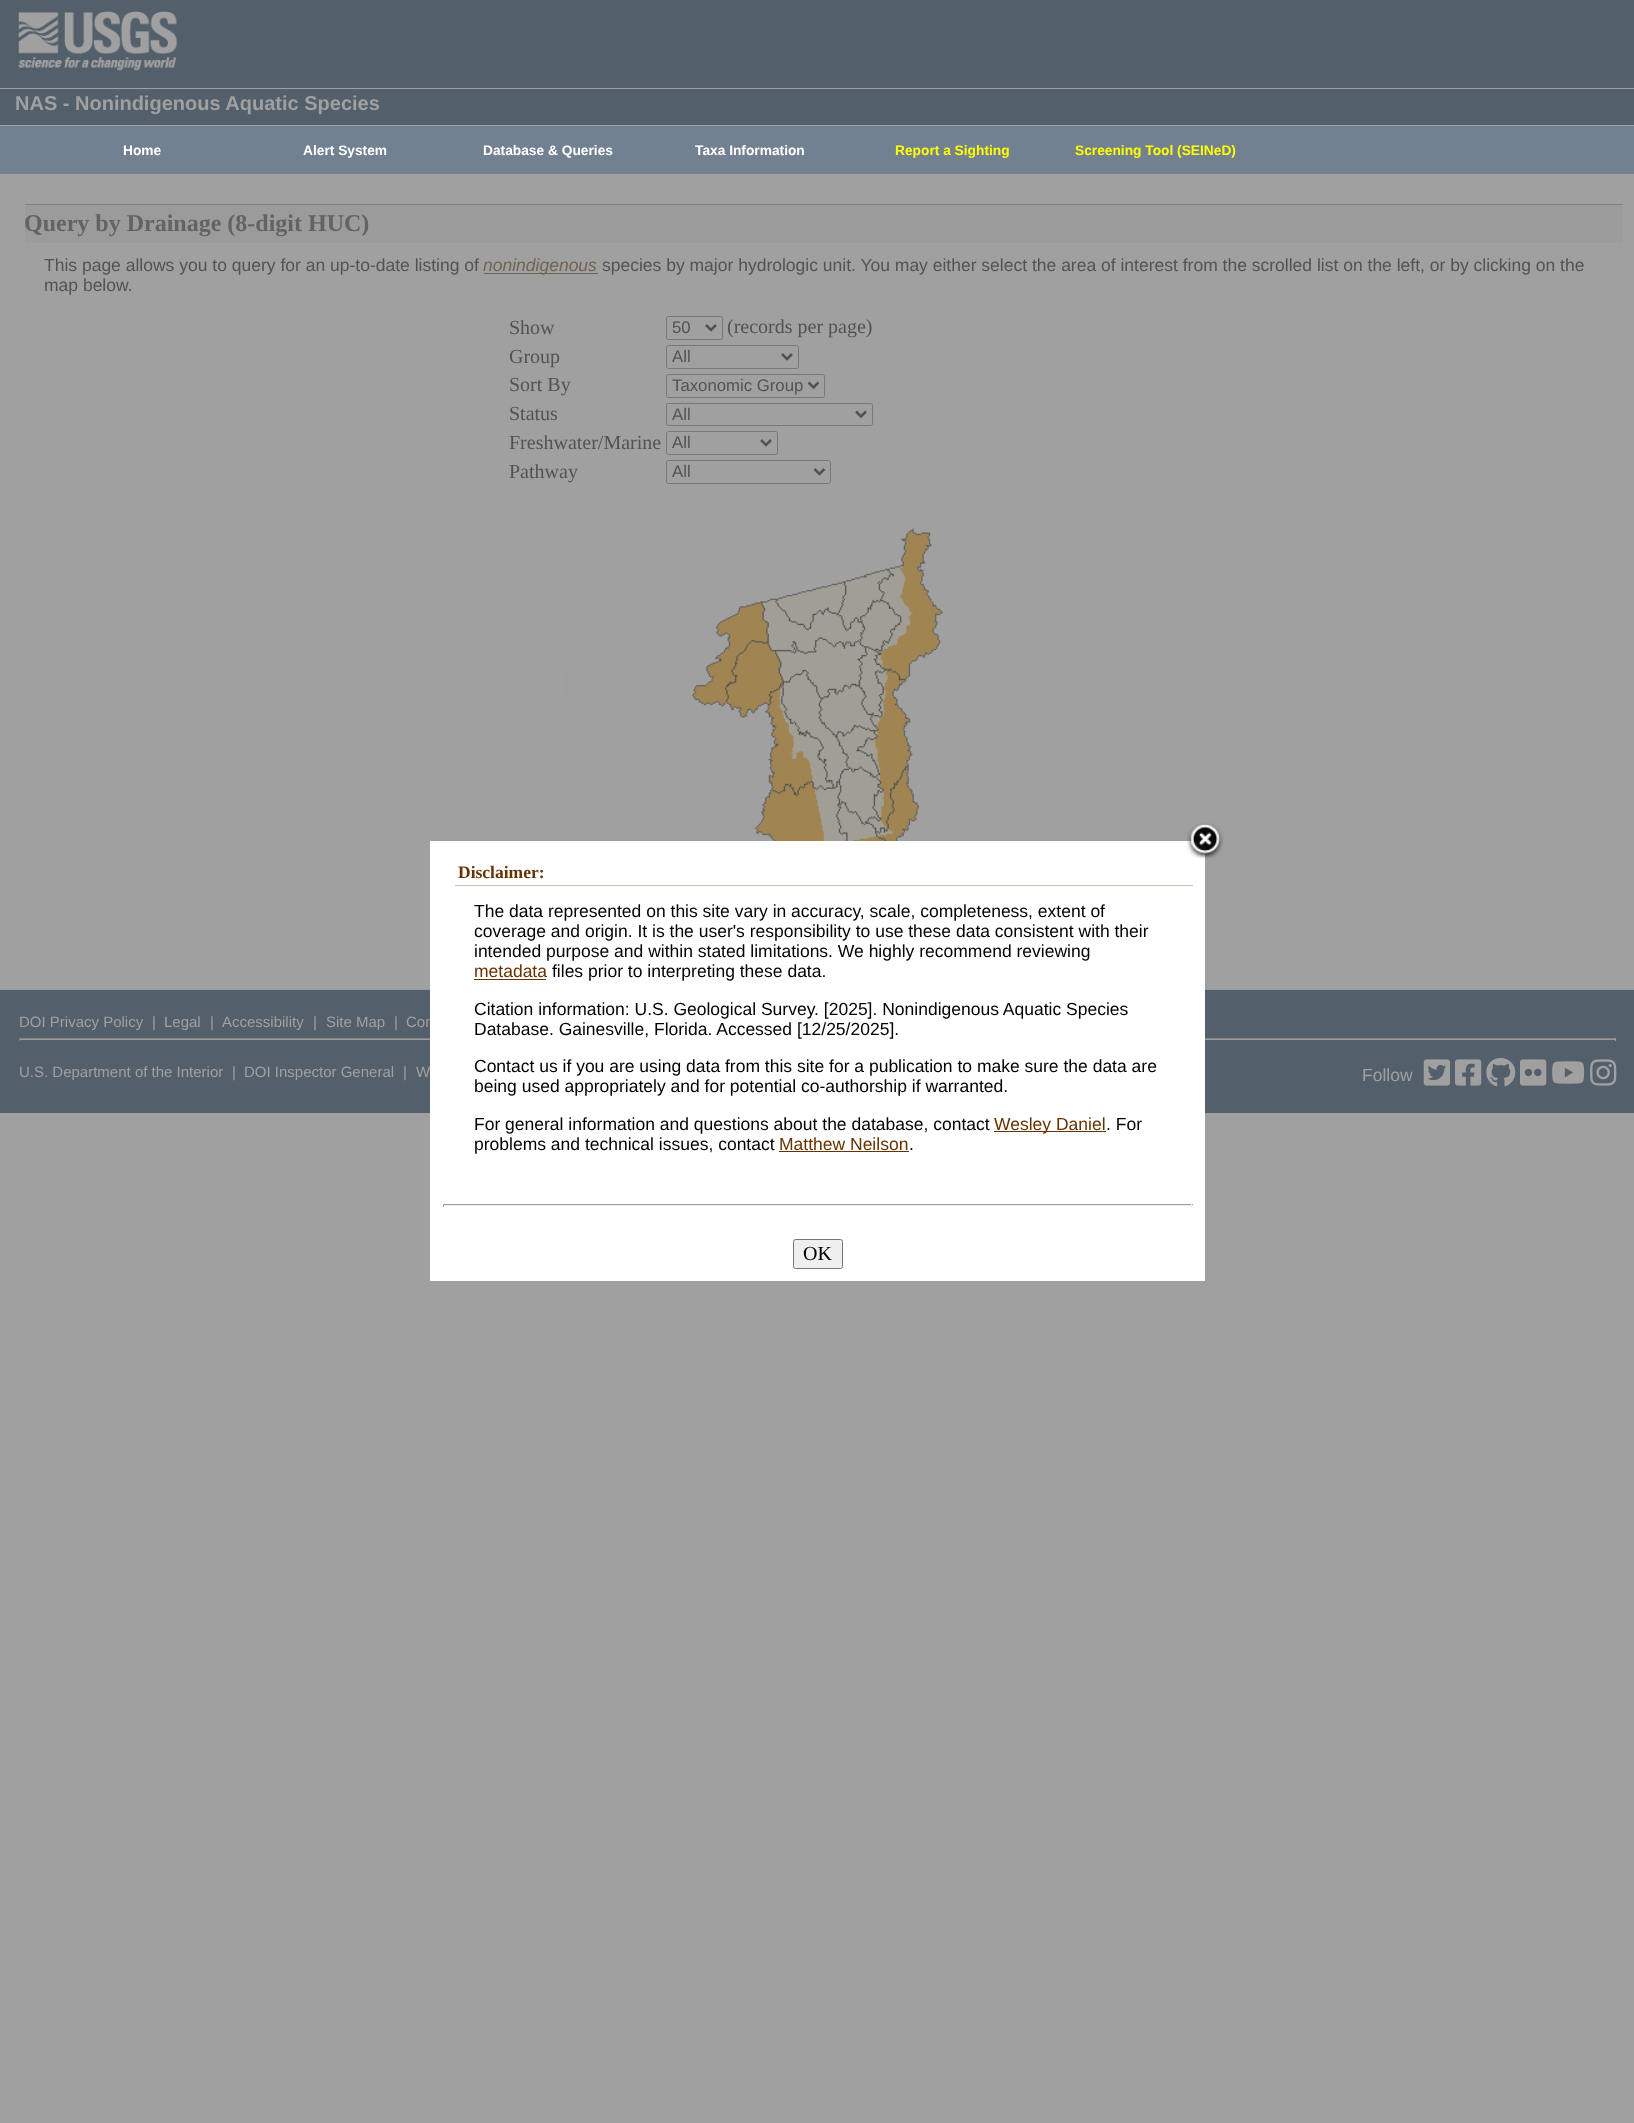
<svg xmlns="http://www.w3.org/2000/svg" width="1634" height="2123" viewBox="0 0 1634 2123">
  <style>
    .t1 { font: bold 20px Liberation Sans; fill: #a0a0a0; }
    .t2 { font: bold 13.75px Liberation Sans; fill: #fff; }
    .t3 { font: bold 13.75px Liberation Sans; fill: #ff0; }
    .t4 { font: bold 24px Liberation Serif; fill: #636363; }
    .t5 { font: 17.5px Liberation Sans; fill: #535353; }
    .t6 { font: italic 17.5px Liberation Sans; fill: #726353; }
    .t7 { font: 20px Liberation Serif; fill: #535353; }
    .t8 { font: 16.75px Liberation Sans; fill: #535353; }
    .t9 { font: 15px Liberation Sans; fill: #a0a0a0; }
    .t10 { font: 17.5px Liberation Sans; fill: #a0a0a0; }
    .t11 { font: bold 17.5px Liberation Serif; fill: #630; }
    .t12 { font: 17.5px Liberation Sans; fill: #000; }
    .t13 { font: 17.5px Liberation Sans; fill: #630; }
    .t14 { font: 20px Liberation Serif; fill: #000; }
  </style>
  <rect width="100%" height="100%" fill="#a0a0a0"/>
  <rect x="0" y="0" width="1634" height="88" fill="#535f6a"/>
  <image x="18" y="11" width="160" height="60" href="images/1.png"/>
  <rect x="0" y="89" width="1634" height="36" fill="#535f6a"/>
  <text x="15" y="110" class="t1">NAS - Nonindigenous Aquatic Species</text>
  <rect x="0" y="126" width="1634" height="48" fill="#728191"/>
  <text x="123" y="155" class="t2">Home</text>
  <text x="303" y="155" class="t2">Alert System</text>
  <text x="483" y="155" class="t2">Database &amp; Queries</text>
  <text x="695" y="155" class="t2">Taxa Information</text>
  <text x="895" y="155" class="t3">Report a Sighting</text>
  <text x="1075" y="155" class="t3">Screening Tool (SEINeD)</text>
  <rect x="25" y="205" width="1598" height="38" fill="#9b9b9b"/>
  <rect x="25" y="204" width="1598" height="1" fill="#728191"/>
  <text x="24" y="231" class="t4">Query by Drainage (8-digit HUC)</text>
  <text x="44" y="271" class="t5">This page allows you to query for an up-to-date listing of</text>
  <rect x="484" y="273" width="114" height="1" fill="#726353"/>
  <text x="483" y="271" class="t6">nonindigenous</text>
  <text x="602" y="271" class="t5">species by major hydrologic unit. You may either select the area of interest from the scrolled list on the left, or by clicking on the</text>
  <text x="44" y="291" class="t5">map below.</text>
  <text x="509" y="334" class="t7">Show</text>
  <rect x="666.5" y="316.5" width="56" height="23" rx="2" fill="none" stroke="#777"/>
  <path d="M706 325L711 330L716 325" fill="none" stroke="#535353" stroke-width="2.5"/>
  <text x="672" y="333" class="t8">50</text>
  <text x="727" y="333" class="t7">(records per page)</text>
  <text x="509" y="363" class="t7">Group</text>
  <rect x="666.5" y="345.5" width="132" height="23" rx="2" fill="none" stroke="#777"/>
  <path d="M782 354L787 359L792 354" fill="none" stroke="#535353" stroke-width="2.5"/>
  <text x="672" y="362" class="t8">All</text>
  <text x="509" y="391" class="t7">Sort By</text>
  <rect x="666.5" y="374.5" width="158" height="23" rx="2" fill="none" stroke="#777"/>
  <path d="M808.5 382.5L813.5 387.5L818.5 382.5" fill="none" stroke="#535353" stroke-width="2.5"/>
  <text x="672" y="391" class="t8">Taxonomic Group</text>
  <text x="509" y="420" class="t7">Status</text>
  <rect x="666.5" y="403.5" width="206" height="22" rx="2" fill="none" stroke="#777"/>
  <path d="M856 411.5L861 416.5L866 411.5" fill="none" stroke="#535353" stroke-width="2.5"/>
  <text x="672" y="420" class="t8">All</text>
  <text x="509" y="449" class="t7">Freshwater/Marine</text>
  <rect x="666.5" y="431.5" width="111" height="23" rx="2" fill="none" stroke="#777"/>
  <path d="M761 440L766 445L771 440" fill="none" stroke="#535353" stroke-width="2.5"/>
  <text x="672" y="448" class="t8">All</text>
  <text x="509" y="478" class="t7">Pathway</text>
  <rect x="666.5" y="460.5" width="164" height="23" rx="2" fill="none" stroke="#777"/>
  <path d="M814.5 469L819.5 474L824.5 469" fill="none" stroke="#535353" stroke-width="2.5"/>
  <text x="672" y="477" class="t8">All</text>
  <image x="564" y="528" width="379" height="313" href="images/2.png"/>
  <rect x="0" y="990" width="1634" height="123" fill="#535f6a"/>
  <rect x="0" y="989" width="1634" height="1" fill="#989898"/>
  <text x="19" y="1027" class="t9">DOI Privacy Policy</text>
  <text x="152" y="1027" class="t9">|</text>
  <text x="164" y="1027" class="t9">Legal</text>
  <text x="210" y="1027" class="t9">|</text>
  <text x="222" y="1027" class="t9">Accessibility</text>
  <text x="313" y="1027" class="t9">|</text>
  <text x="326" y="1027" class="t9">Site Map</text>
  <text x="394" y="1027" class="t9">|</text>
  <text x="406" y="1027" class="t9">Con</text>
  <rect x="19" y="1038" width="1597" height="1" fill="#838383"/>
  <rect x="1615" y="1038" width="1" height="3" fill="#9b9b9b"/>
  <rect x="19" y="1039" width="1597" height="1" fill="#9b9b9b"/>
  <rect x="19" y="1038" width="1" height="3" fill="#838383"/>
  <text x="19" y="1077" class="t9">U.S. Department of the Interior</text>
  <text x="232" y="1077" class="t9">|</text>
  <text x="244" y="1077" class="t9">DOI Inspector General</text>
  <text x="403" y="1077" class="t9">|</text>
  <text x="416" y="1077" class="t9">W</text>
  <text x="1362" y="1081" class="t10">Follow</text>
  <image x="1423" y="1059" width="27" height="27" href="images/3.png"/>
  <image x="1455" y="1059" width="27" height="27" href="images/4.png"/>
  <image x="1486" y="1058" width="30" height="29" href="images/5.png"/>
  <image x="1520" y="1059" width="27" height="27" href="images/6.png"/>
  <image x="1552" y="1061" width="33" height="23" href="images/7.png"/>
  <image x="1590" y="1059" width="27" height="27" href="images/8.png"/>
  <rect x="430" y="841" width="775" height="440" fill="#fff"/>
  <image x="1187" y="823" width="37" height="36" href="images/9.png"/>
  <rect x="455" y="885" width="738" height="1" fill="#cdc8b1"/>
  <text x="458" y="878" class="t11">Disclaimer:</text>
  <text x="474" y="917" class="t12">The data represented on this site vary in accuracy, scale, completeness, extent of</text>
  <text x="474" y="937" class="t12">coverage and origin. It is the user's responsibility to use these data consistent with their</text>
  <text x="474" y="957" class="t12">intended purpose and within stated limitations. We highly recommend reviewing</text>
  <text x="474" y="977" class="t13">metadata</text>
  <rect x="474" y="979" width="72" height="1" fill="#630"/>
  <text x="552" y="977" class="t12">files prior to interpreting these data.</text>
  <text x="474" y="1015" class="t12">Citation information: U.S. Geological Survey. [2025]. Nonindigenous Aquatic Species</text>
  <text x="474" y="1035" class="t12">Database. Gainesville, Florida. Accessed [12/25/2025].</text>
  <text x="474" y="1072" class="t12">Contact us if you are using data from this site for a publication to make sure the data are</text>
  <text x="474" y="1092" class="t12">being used appropriately and for potential co-authorship if warranted.</text>
  <text x="474" y="1130" class="t12">For general information and questions about the database, contact</text>
  <rect x="994" y="1131" width="112" height="1" fill="#630"/>
  <text x="994" y="1130" class="t13">Wesley Daniel</text>
  <text x="1106" y="1130" class="t12">. For</text>
  <text x="474" y="1150" class="t12">problems and technical issues, contact</text>
  <text x="779" y="1150" class="t13">Matthew Neilson</text>
  <rect x="779" y="1151" width="130" height="1" fill="#630"/>
  <text x="909" y="1150" class="t12">.</text>
  <rect x="443" y="1204" width="750" height="1" fill="#9f9f9f"/>
  <rect x="1191" y="1204" width="1" height="3" fill="#eee"/>
  <rect x="443" y="1205" width="750" height="1" fill="#eee"/>
  <rect x="443" y="1204" width="1" height="3" fill="#9f9f9f"/>
  <rect x="793.5" y="1239.5" width="49" height="29" rx="2" fill="#efefef" stroke="#767676"/>
  <text x="803" y="1260" class="t14">OK</text>
</svg>
